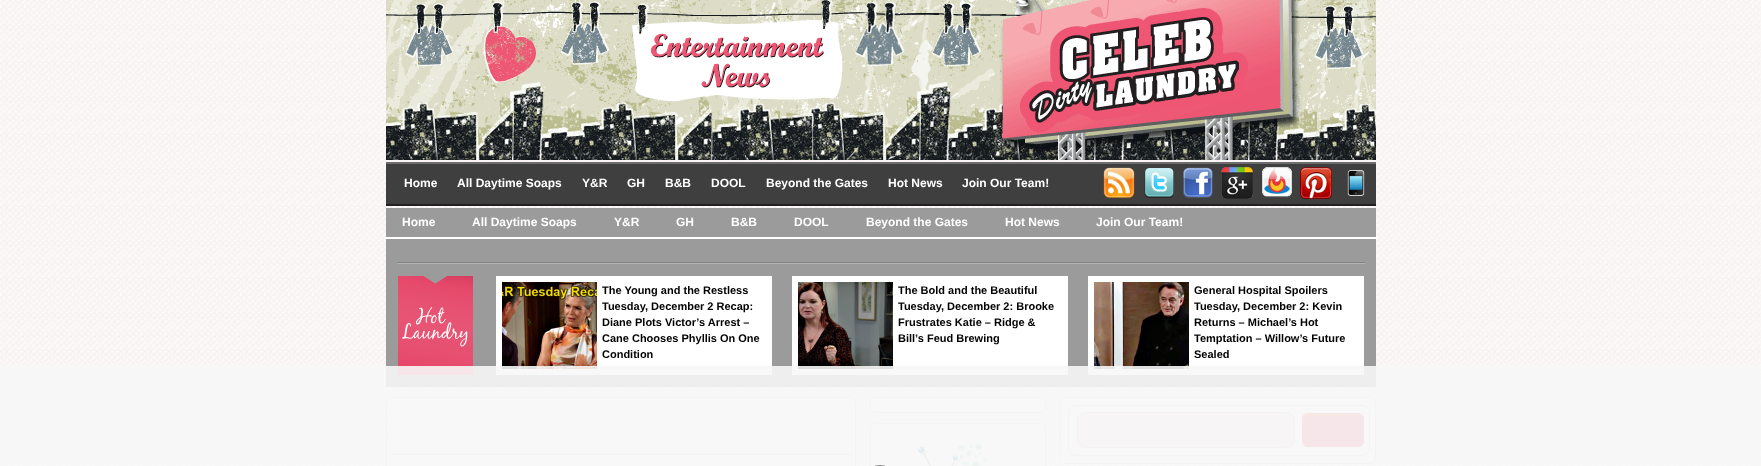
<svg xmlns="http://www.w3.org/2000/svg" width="1761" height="466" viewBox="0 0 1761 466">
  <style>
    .t1 { font: bold 12px Liberation Sans; fill: #fff; }
    .t2 { font: bold 11px Liberation Sans; fill: #000; }
  </style>
  <rect width="100%" height="100%" fill="#fff"/>
  <image x="0" y="0" width="1761" height="466" href="images/1.png"/>
  <image x="386" y="0" width="990" height="160" href="images/2.png"/>
  <rect x="386" y="164" width="990" height="40" fill="#3f3f3f"/>
  <rect x="386" y="162" width="990" height="2" fill="#6d6d6d"/>
  <rect x="386" y="204" width="990" height="2" fill="#212121"/>
  <text x="404" y="187" class="t1">Home</text>
  <text x="457" y="187" class="t1">All Daytime Soaps</text>
  <text x="582" y="187" class="t1">Y&amp;R</text>
  <text x="627" y="187" class="t1">GH</text>
  <text x="665" y="187" class="t1">B&amp;B</text>
  <text x="711" y="187" class="t1">DOOL</text>
  <text x="766" y="187" class="t1">Beyond the Gates</text>
  <text x="888" y="187" class="t1">Hot News</text>
  <text x="962" y="187" class="t1">Join Our Team!</text>
  <image x="1103" y="167" width="32" height="32" href="images/3.png"/>
  <image x="1144" y="168" width="30" height="30" href="images/4.png"/>
  <image x="1183" y="167" width="30" height="31" href="images/5.png"/>
  <image x="1221" y="167" width="32" height="32" href="images/6.png"/>
  <image x="1262" y="167" width="30" height="31" href="images/7.png"/>
  <image x="1300" y="167" width="32" height="32" href="images/8.png"/>
  <image x="1347" y="170" width="18" height="26" href="images/9.png"/>
  <rect x="386" y="208" width="990" height="179" fill="#9b9b9b"/>
  <rect x="385" y="237" width="992" height="2" fill="#fff"/>
  <text x="402" y="226" class="t1">Home</text>
  <text x="472" y="226" class="t1">All Daytime Soaps</text>
  <text x="614" y="226" class="t1">Y&amp;R</text>
  <text x="676" y="226" class="t1">GH</text>
  <text x="731" y="226" class="t1">B&amp;B</text>
  <text x="794" y="226" class="t1">DOOL</text>
  <text x="866" y="226" class="t1">Beyond the Gates</text>
  <text x="1005" y="226" class="t1">Hot News</text>
  <text x="1096" y="226" class="t1">Join Our Team!</text>
  <image x="397" y="262" width="968" height="2" href="images/10.png"/>
  <image x="398" y="276" width="75" height="99" href="images/11.png"/>
  <rect x="496" y="276" width="276" height="99" fill="#fff"/>
  <image x="502" y="282" width="95" height="87" href="images/12.png"/>
  <text x="602" y="294" class="t2">The Young and the Restless</text>
  <text x="602" y="310" class="t2">Tuesday, December 2 Recap:</text>
  <text x="602" y="326" class="t2">Diane Plots Victor’s Arrest –</text>
  <text x="602" y="342" class="t2">Cane Chooses Phyllis On One</text>
  <text x="602" y="358" class="t2">Condition</text>
  <rect x="792" y="276" width="276" height="99" fill="#fff"/>
  <image x="798" y="282" width="95" height="87" href="images/13.png"/>
  <text x="898" y="294" class="t2">The Bold and the Beautiful</text>
  <text x="898" y="310" class="t2">Tuesday, December 2: Brooke</text>
  <text x="898" y="326" class="t2">Frustrates Katie – Ridge &amp;</text>
  <text x="898" y="342" class="t2">Bill’s Feud Brewing</text>
  <rect x="1088" y="276" width="276" height="99" fill="#fff"/>
  <image x="1094" y="282" width="95" height="87" href="images/14.png"/>
  <text x="1194" y="294" class="t2">General Hospital Spoilers</text>
  <text x="1194" y="310" class="t2">Tuesday, December 2: Kevin</text>
  <text x="1194" y="326" class="t2">Returns – Michael’s Hot</text>
  <text x="1194" y="342" class="t2">Temptation – Willow’s Future</text>
  <text x="1194" y="358" class="t2">Sealed</text>
  <rect x="386.5" y="397.5" width="469" height="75" rx="5.5" fill="#fff" stroke="#d8d8d8"/>
  <rect x="392" y="453" width="458" height="2" fill="#d8d8d8"/>
  <rect x="870.5" y="397.5" width="175" height="15" rx="4.5" fill="#fff" stroke="#d8d8d8"/>
  <rect x="870.5" y="423.5" width="175" height="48" rx="4.5" fill="#fff" stroke="#d8d8d8"/>
  <image x="913" y="431" width="81" height="35" href="images/15.png"/>
  <rect x="1060.5" y="397.5" width="315" height="66" rx="4.5" fill="#fff" stroke="#d8d8d8"/>
  <rect x="1068.5" y="405.5" width="301" height="50" rx="7.5" fill="#f8f8f8" stroke="#ccc"/>
  <rect x="1077.5" y="412.5" width="217" height="35" rx="7.5" fill="#f0dddd" stroke="#ccc"/>
  <path d="M1302 441C1302 450 1310 448 1316 448H1350C1356 448 1364 450 1364 441C1364 444 1361 447 1358 447H1308C1305 447 1302 444 1302 441Z" fill="#fff"/>
  <rect x="1302" y="413" width="62" height="34" rx="6" fill="#e64a6c"/>
  <path d="M1308 415H1358C1361 415 1363 417 1363 420C1363 412 1356 414 1350 414H1316C1310 414 1303 412 1303 420C1303 417 1305 415 1308 415Z" fill="#fa8e1f"/>
  <rect x="1302.5" y="413.5" width="61" height="33" rx="5.5" fill="none" stroke="#e64a6c"/>
  <rect x="0" y="366" width="1761" height="100" fill="#f7f7f7e6"/>
  <rect x="869.5" y="465.5" width="21" height="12" rx="10.5" fill="none" stroke="#888"/>
</svg>
